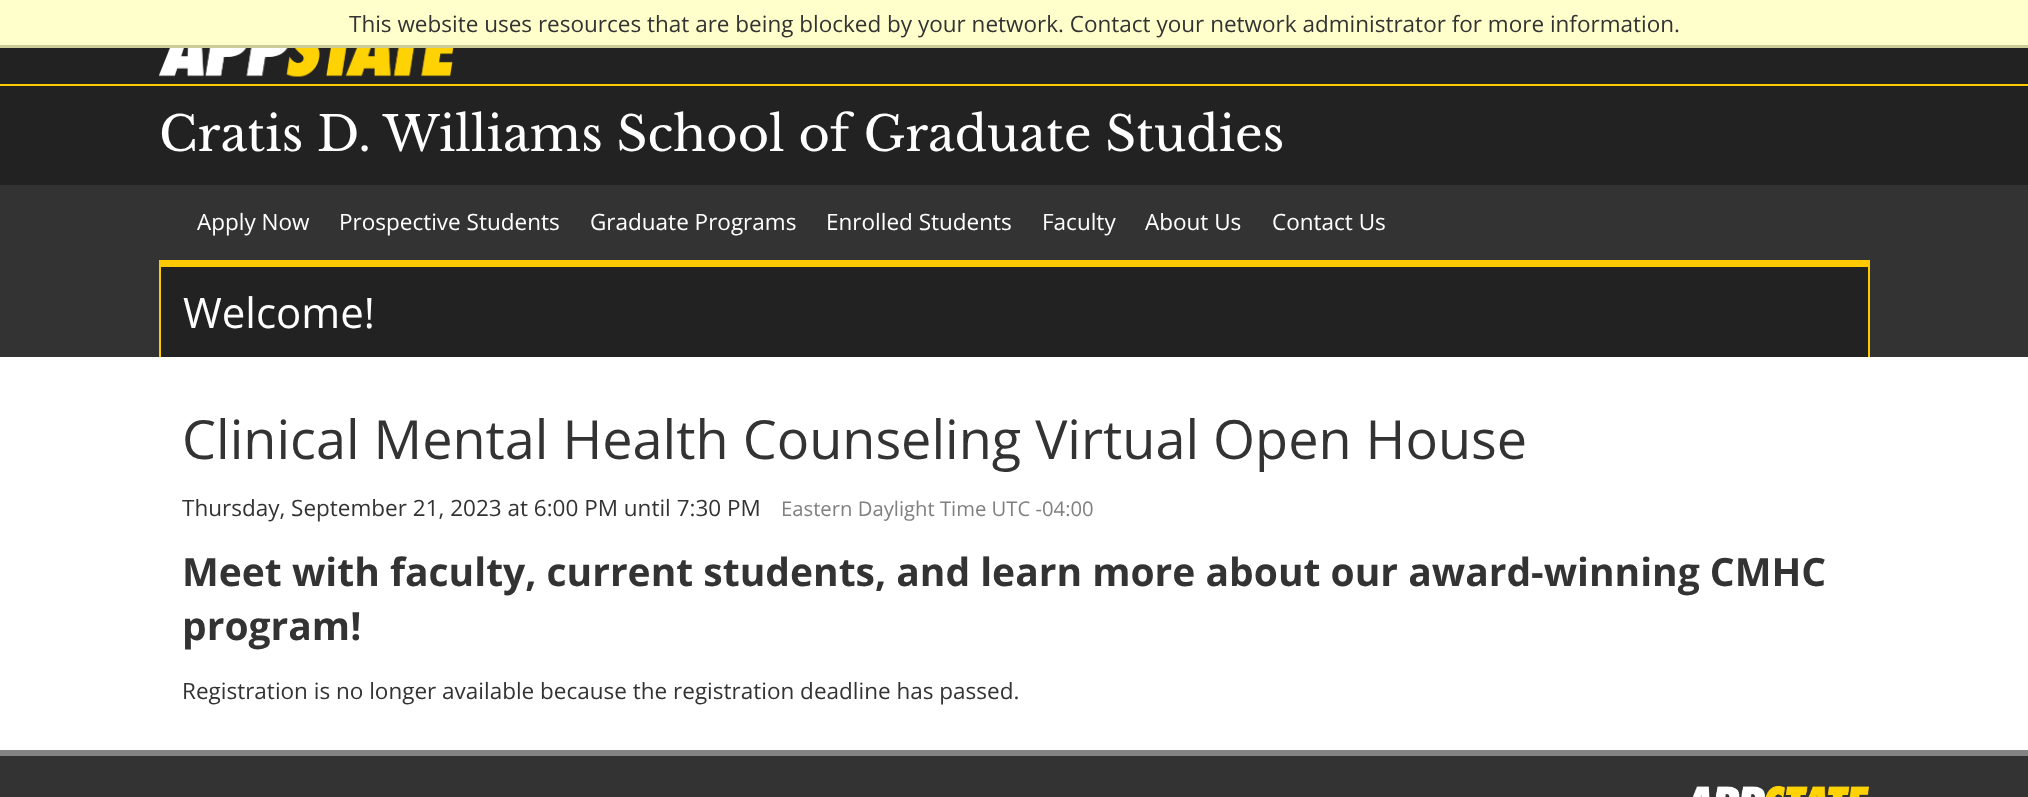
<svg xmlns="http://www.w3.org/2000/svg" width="2028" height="797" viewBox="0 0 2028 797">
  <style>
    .t1 { font: 22.5px Open Sans; fill: #333; }
    .t2 { font: 48px Libre Baskerville; fill: #fff; }
    .t3 { font: 22.5px Open Sans; fill: #fff; }
    .t4 { font: 42px Open Sans; fill: #fff; }
    .t5 { font: 54px Open Sans; fill: #333; }
    .t6 { font: 20.25px Open Sans; fill: #808080; }
    .t7 { font: bold 39px Open Sans; fill: #333; }
  </style>
  <rect width="100%" height="100%" fill="#333"/>
  <rect x="0" y="0" width="2028" height="45" fill="#ffc"/>
  <rect x="0" y="45" width="2028" height="3" fill="#cc9"/>
  <text x="349" y="32" class="t1">This website uses resources that are being blocked by your network. Contact your network administrator for more information.</text>
  <rect x="0" y="48" width="2028" height="36" fill="#222"/>
  <rect x="0" y="84" width="2028" height="2" fill="#ffc900"/>
  <image x="159" y="48" width="295" height="29" href="images/1.png"/>
  <rect x="0" y="86" width="2028" height="99" fill="#222"/>
  <text x="159" y="151" class="t2">Cratis D. Williams School of Graduate Studies</text>
  <text x="197" y="230" class="t3">Apply Now</text>
  <text x="339" y="230" class="t3">Prospective Students</text>
  <text x="590" y="230" class="t3">Graduate Programs</text>
  <text x="826" y="230" class="t3">Enrolled Students</text>
  <text x="1042" y="230" class="t3">Faculty</text>
  <text x="1145" y="230" class="t3">About Us</text>
  <text x="1272" y="230" class="t3">Contact Us</text>
  <rect x="161" y="267" width="1707" height="90" fill="#222"/>
  <rect x="159" y="260" width="1710" height="7" fill="#ffc900"/>
  <rect x="1868" y="260" width="2" height="97" fill="#ffc900"/>
  <rect x="159" y="260" width="2" height="97" fill="#ffc900"/>
  <text x="183" y="328" class="t4">Welcome!</text>
  <rect x="0" y="357" width="2028" height="393" fill="#fff"/>
  <text x="182" y="459" class="t5">Clinical Mental Health Counseling Virtual Open House</text>
  <text x="182" y="516" class="t1">Thursday, September 21, 2023 at 6:00 PM until 7:30 PM</text>
  <text x="781" y="516" class="t6">Eastern Daylight Time UTC -04:00</text>
  <text x="182" y="586" class="t7">Meet with faculty, current students, and learn more about our award-winning CMHC</text>
  <text x="182" y="640" class="t7">program!</text>
  <text x="182" y="699" class="t1">Registration is no longer available because the registration deadline has passed.</text>
  <rect x="0" y="750" width="2028" height="6" fill="#848484"/>
  <image x="1693" y="786" width="176" height="11" href="images/2.png"/>
</svg>
